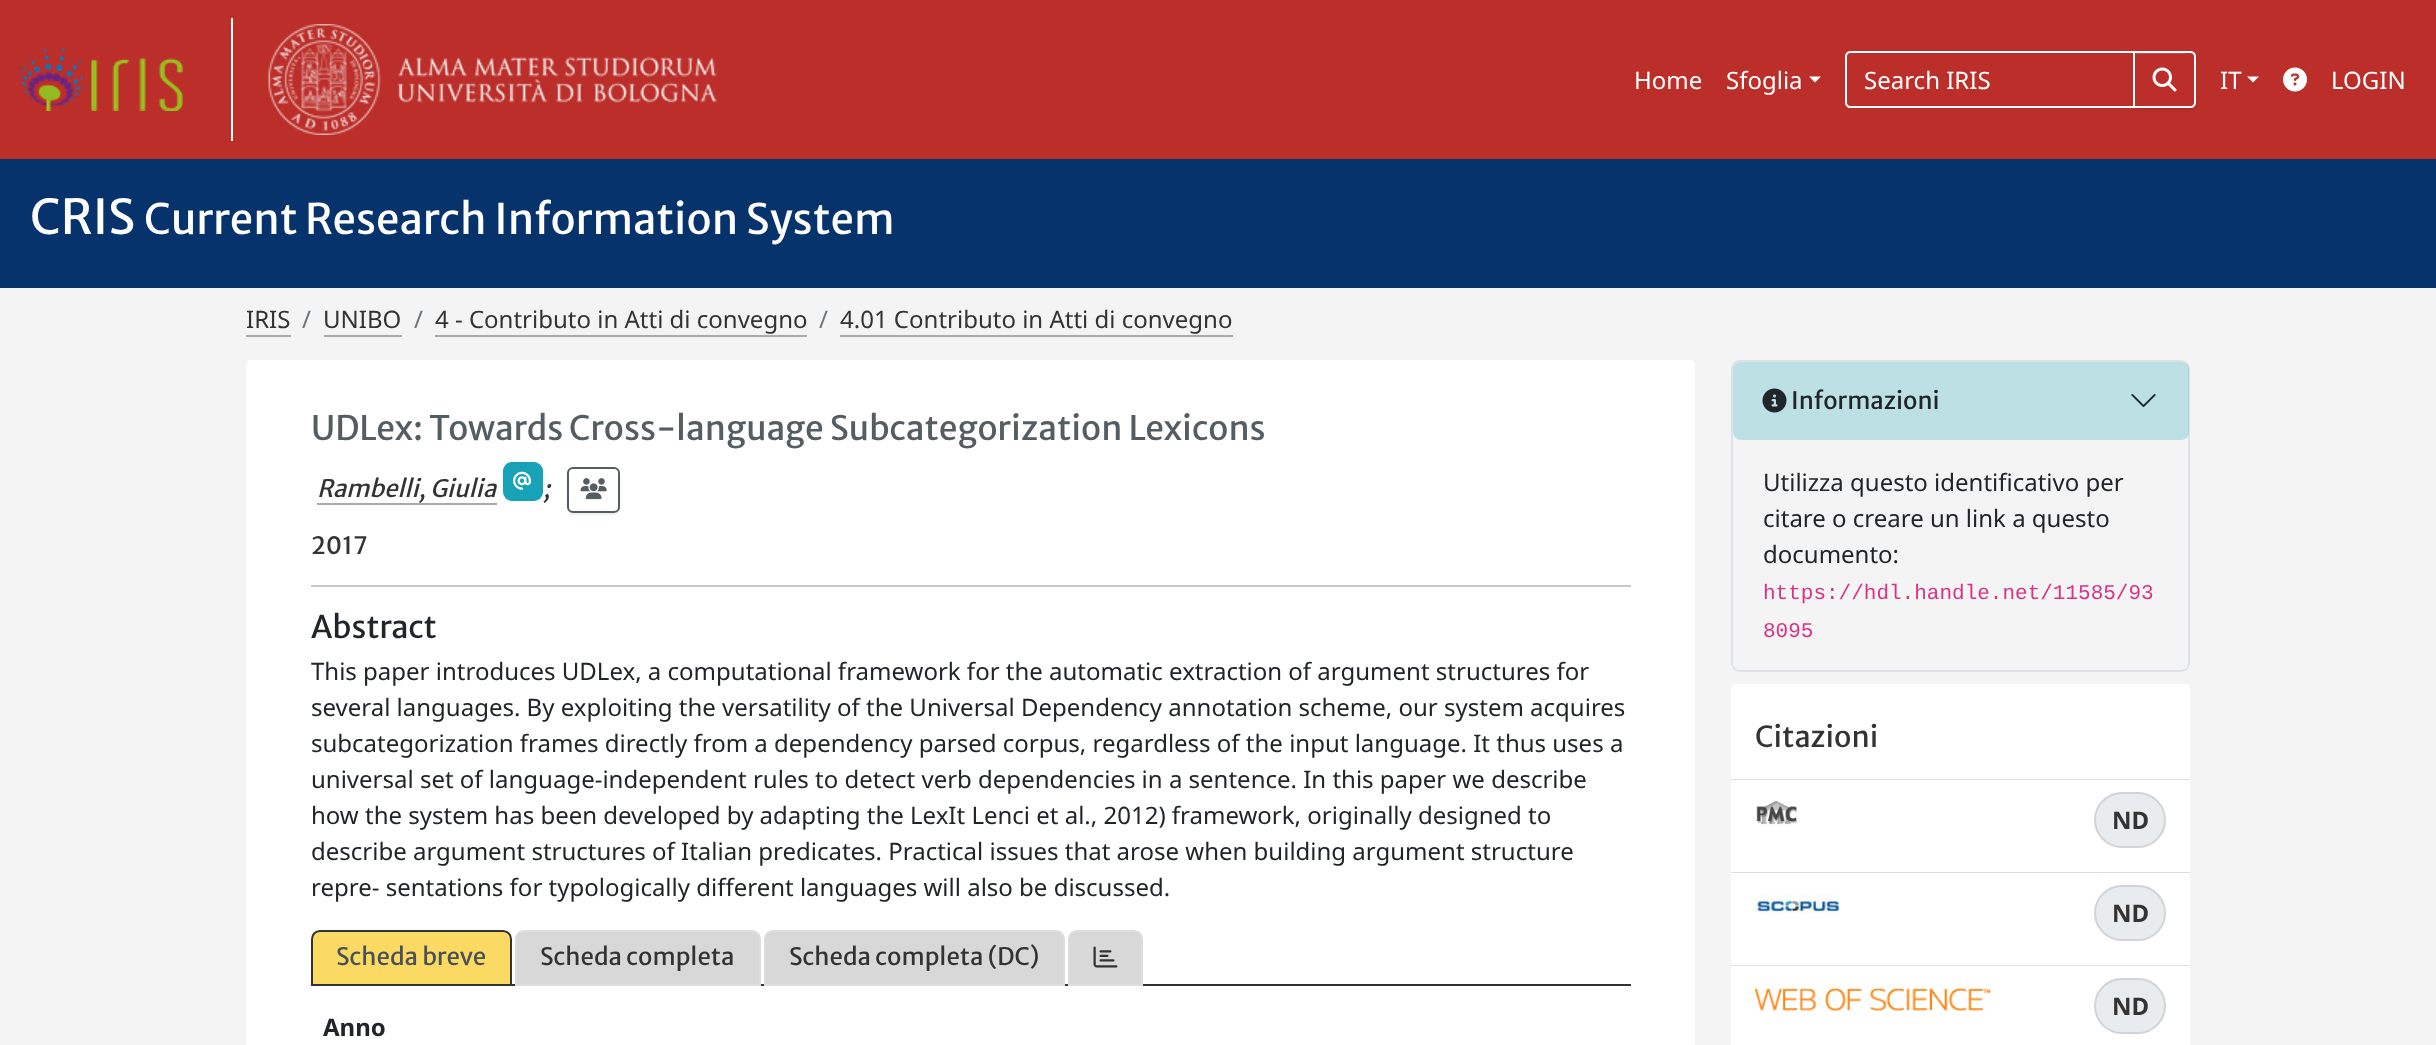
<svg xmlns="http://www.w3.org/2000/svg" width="2436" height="1045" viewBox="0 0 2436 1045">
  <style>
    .t1 { font: 24px Noto Sans; fill: #fff; }
    .t2 { font: 48px Merriweather Sans; fill: #fff; }
    .t3 { font: 42px Merriweather Sans; fill: #fff; }
    .t4 { font: 24px Noto Sans; fill: #333; }
    .t5 { font: 24px Noto Sans; fill: #6c757d; }
    .t6 { font: 33.6px Merriweather Sans; fill: #545d62; }
    .t7 { font: italic 24px Merriweather Sans; fill: #333; }
    .t8 { font: 24px Merriweather Sans; fill: #333; }
    .t9 { font: 31px Merriweather Sans; fill: #212529; }
    .t10 { font: 24px Noto Sans; fill: #212529; }
    .t11 { font: 24px Merriweather Sans; fill: #495057; }
    .t12 { font: bold 24px Noto Sans; fill: #212529; }
    .t13 { font: 24px Merriweather Sans; fill: #212529; }
    .t14 { font: 21px Liberation Mono; fill: #d63384; }
    .t15 { font: 29px Merriweather Sans; fill: #333; }
    .t16 { font: bold 24px Noto Sans; fill: #333; }
  </style>
  <defs>
    <clipPath id="clip1"><path d="M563 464H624V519H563ZM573 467H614C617.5 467 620 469.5 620 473V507C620 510.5 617.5 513 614 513H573C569.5 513 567 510.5 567 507V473C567 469.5 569.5 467 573 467Z" clip-rule="evenodd"/></clipPath>
  </defs>
  <rect width="100%" height="100%" fill="#f4f4f4"/>
  <rect x="0" y="0" width="2436" height="159" fill="#bb2e29"/>
  <image x="18" y="48" width="165" height="63" href="images/1.png"/>
  <rect x="231" y="18" width="2" height="123" fill="#fff"/>
  <image x="268" y="24" width="449" height="111" href="images/2.png"/>
  <text x="1634" y="89" class="t1">Home</text>
  <text x="1726" y="89" class="t1">Sfoglia</text>
  <path d="M1809 76.5H1821L1815 82.5Z" fill="#fff"/>
  <path d="M1850 52H2134V107H1850C1848 107 1846 105 1846 103V56C1846 54 1848 52 1850 52Z" fill="none" stroke="#fff" stroke-width="2"/>
  <text x="1864" y="89" class="t1">Search IRIS</text>
  <rect x="2133" y="53" width="63" height="57" rx="5" fill="#00000012" filter="blur(1px)"/>
  <path d="M2133 51H2191C2194 51 2196 53 2196 56V103C2196 106 2194 108 2191 108H2133Z" fill="#bb2e29"/>
  <path d="M2135 53V54H2182C2185 54 2194 51 2194 57V106C2195 106 2195 105 2195 104V56C2195 54 2194 53 2192 53Z" fill="#c54d49"/>
  <path d="M2134 52H2191C2193 52 2195 54 2195 56V103C2195 105 2193 107 2191 107H2134Z" fill="none" stroke="#fff" stroke-width="2"/>
  <image x="2152" y="67" width="25" height="25" href="images/3.png"/>
  <text x="2220" y="89" class="t1">IT</text>
  <path d="M2247 76.5H2259L2253 82.5Z" fill="#fff"/>
  <image x="2283" y="67" width="24" height="25" href="images/4.png"/>
  <text x="2331" y="89" class="t1">LOGIN</text>
  <rect x="0" y="159" width="2436" height="129" fill="#06336b"/>
  <text x="30" y="234" class="t2">CRIS</text>
  <text x="144" y="234" class="t3">Current Research Information System</text>
  <text x="246" y="328" class="t4">IRIS</text>
  <rect x="246" y="335" width="45" height="2" fill="#aaa"/>
  <text x="302" y="328" class="t5">/</text>
  <text x="323" y="328" class="t4">UNIBO</text>
  <rect x="324" y="335" width="78" height="2" fill="#aaa"/>
  <text x="414" y="328" class="t5">/</text>
  <text x="435" y="328" class="t4">4 - Contributo in Atti di convegno</text>
  <rect x="435" y="335" width="372" height="2" fill="#aaa"/>
  <text x="819" y="328" class="t5">/</text>
  <text x="840" y="328" class="t4">4.01 Contributo in Atti di convegno</text>
  <rect x="840" y="335" width="393" height="2" fill="#aaa"/>
  <rect x="246" y="360" width="1449" height="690" rx="5" fill="#fff"/>
  <text x="311" y="440" class="t6">UDLex: Towards Cross-language Subcategorization Lexicons</text>
  <text x="317" y="497" class="t7">Rambelli, Giulia</text>
  <rect x="317" y="503" width="180" height="2" fill="#aaa"/>
  <rect x="503" y="462" width="40" height="39" rx="9" fill="#17a2b8"/>
  <image x="513" y="471" width="18" height="19" href="images/5.png"/>
  <text x="543" y="497" class="t7">;</text>
  <g clip-path="url(#clip1)">
    <rect x="567" y="468" width="53" height="47" rx="6" fill="#00000012" filter="blur(1px)"/>
  </g>
  <rect x="568" y="468" width="51" height="44" rx="5" fill="none" stroke="#545d62" stroke-width="2"/>
  <image x="580" y="478" width="27" height="22" href="images/6.png"/>
  <text x="311" y="554" class="t8">2017</text>
  <rect x="311" y="585" width="1320" height="2" fill="#c8c9ca"/>
  <text x="311" y="638" class="t9">Abstract</text>
  <text x="311" y="680" class="t10">This paper introduces UDLex, a computational framework for the automatic extraction of argument structures for</text>
  <text x="311" y="716" class="t10">several languages. By exploiting the versatility of the Universal Dependency annotation scheme, our system acquires</text>
  <text x="311" y="752" class="t10">subcategorization frames directly from a dependency parsed corpus, regardless of the input language. It thus uses a</text>
  <text x="311" y="788" class="t10">universal set of language-independent rules to detect verb dependencies in a sentence. In this paper we describe</text>
  <text x="311" y="824" class="t10">how the system has been developed by adapting the LexIt Lenci et al., 2012) framework, originally designed to</text>
  <text x="311" y="860" class="t10">describe argument structures of Italian predicates. Practical issues that arose when building argument structure</text>
  <text x="311" y="896" class="t10">repre- sentations for typologically different languages will also be discussed.</text>
  <rect x="512" y="984" width="1119" height="2" fill="#333"/>
  <path d="M320 931H503C507.5 931 511 934.5 511 939V985H312V939C312 934.5 315.5 931 320 931Z" fill="#fbda64" stroke="#333" stroke-width="2"/>
  <text x="336" y="965" class="t11">Scheda breve</text>
  <path d="M524 931H752C756.5 931 760 934.5 760 939V985H516V939C516 934.5 519.5 931 524 931Z" fill="#d8d8d8" stroke="#ddd" stroke-width="2"/>
  <text x="540" y="965" class="t8">Scheda completa</text>
  <path d="M773 931H1056C1060.5 931 1064 934.5 1064 939V985H765V939C765 934.5 768.5 931 773 931Z" fill="#d8d8d8" stroke="#ddd" stroke-width="2"/>
  <text x="789" y="965" class="t8">Scheda completa (DC)</text>
  <path d="M1077 931H1134C1138.5 931 1142 934.5 1142 939V985H1069V939C1069 934.5 1072.5 931 1077 931Z" fill="#d8d8d8" stroke="#ddd" stroke-width="2"/>
  <image x="1093" y="946" width="25" height="22" href="images/7.png"/>
  <text x="323" y="1036" class="t12">Anno</text>
  <rect x="1732" y="361" width="457" height="310" rx="8" fill="none" stroke="#dee2e6" stroke-width="2"/>
  <rect x="1733" y="362" width="456" height="78" rx="8" fill="#17a2b840"/>
  <image x="1762" y="388" width="25" height="25" href="images/8.png"/>
  <text x="1791" y="409" class="t13">Informazioni</text>
  <image x="2131" y="394" width="25" height="13" href="images/9.png"/>
  <text x="1763" y="491" class="t10">Utilizza questo identificativo per</text>
  <text x="1763" y="527" class="t10">citare o creare un link a questo</text>
  <text x="1763" y="563" class="t10">documento:</text>
  <text x="1763" y="599" class="t14">https://hdl.handle.net/11585/93</text>
  <text x="1763" y="637" class="t14">8095</text>
  <path d="M1736 684H2185C2188 684 2190 686 2190 689V779H1731V689C1731 686 1733 684 1736 684Z" fill="#fff"/>
  <text x="1755" y="747" class="t15">Citazioni</text>
  <rect x="1731" y="779" width="459" height="1" fill="#ddd"/>
  <rect x="1731" y="780" width="459" height="92" fill="#fff"/>
  <rect x="1731" y="872" width="459" height="1" fill="#dfdfdf"/>
  <image x="1756" y="801" width="41" height="24" href="images/10.png"/>
  <rect x="2095" y="793" width="70" height="54" rx="27" fill="#e9ecef" stroke="#ced4da" stroke-width="2"/>
  <text x="2112" y="829" class="t16">ND</text>
  <rect x="1731" y="873" width="459" height="92" fill="#fff"/>
  <rect x="1731" y="965" width="459" height="1" fill="#dfdfdf"/>
  <image x="1755" y="893" width="84" height="20" href="images/11.png"/>
  <rect x="2095" y="886" width="70" height="54" rx="27" fill="#e9ecef" stroke="#ced4da" stroke-width="2"/>
  <text x="2112" y="922" class="t16">ND</text>
  <rect x="1731" y="966" width="459" height="79" fill="#fff"/>
  <image x="1755" y="988" width="236" height="23" href="images/12.png"/>
  <rect x="2095" y="979" width="70" height="54" rx="27" fill="#e9ecef" stroke="#ced4da" stroke-width="2"/>
  <text x="2112" y="1015" class="t16">ND</text>
</svg>
